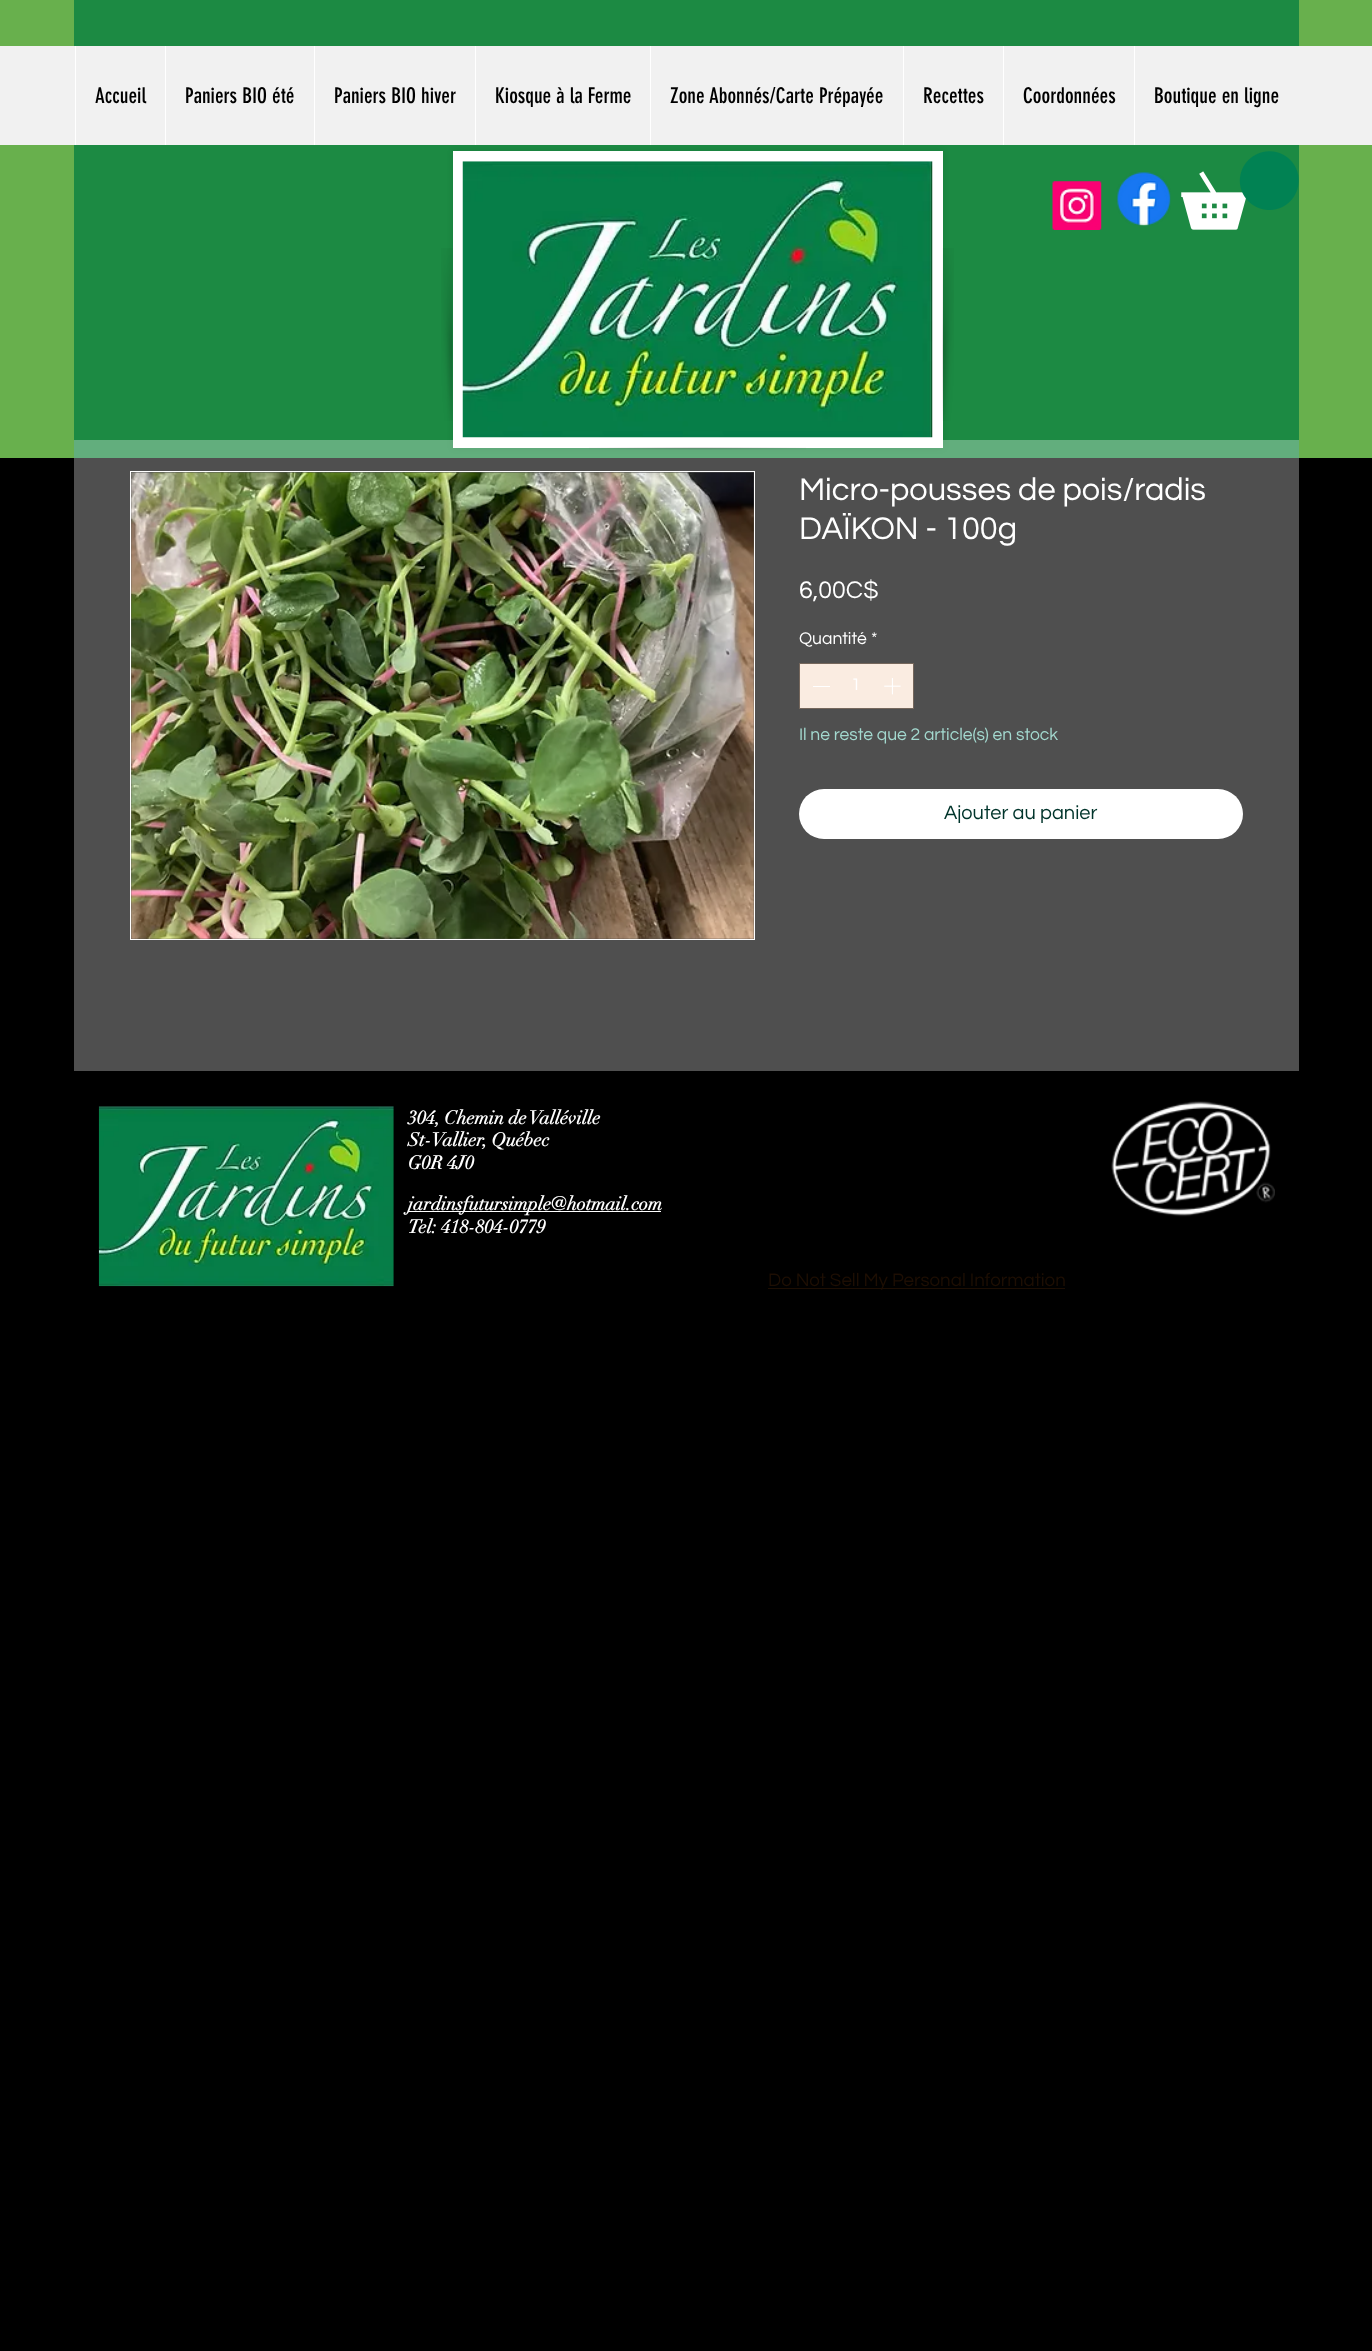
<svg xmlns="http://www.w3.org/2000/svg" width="1372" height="2351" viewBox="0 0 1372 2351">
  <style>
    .t1 { font: 21.25px 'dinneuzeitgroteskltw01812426'; fill: #000; }
    .t2 { font: 32.5px Questrial; fill: #fff; }
    .t3 { font: 25px Questrial; fill: #fff; }
    .t4 { font: 17.5px Questrial; fill: #fff; }
    .t5 { font: 17.5px Questrial; fill: #a3d9cf; }
    .t6 { font: 20px Questrial; fill: #00342b; }
    .t7 { font: bold 18.75px didot; fill: #fff; }
    .t8 { font: 18.75px Questrial; fill: #1d0e03; }
  </style>
  <rect width="100%" height="100%" fill="#000"/>
  <rect x="0" y="0" width="1372" height="458" fill="#68b04d"/>
  <rect x="74" y="0" width="1225" height="458" fill="#1c8a43"/>
  <rect x="0" y="46" width="1372" height="99" fill="#f1f1f1"/>
  <rect x="75" y="46" width="1" height="99" fill="#fff"/>
  <text x="95" y="103" class="t1">Accueil</text>
  <rect x="165" y="46" width="1" height="99" fill="#fff"/>
  <text x="185" y="103" class="t1">Paniers BIO été</text>
  <rect x="314" y="46" width="1" height="99" fill="#fff"/>
  <text x="334" y="103" class="t1">Paniers BIO hiver</text>
  <rect x="475" y="46" width="1" height="99" fill="#fff"/>
  <text x="495" y="103" class="t1">Kiosque à la Ferme</text>
  <rect x="650" y="46" width="1" height="99" fill="#fff"/>
  <text x="670" y="103" class="t1">Zone Abonnés/Carte Prépayée</text>
  <rect x="903" y="46" width="1" height="99" fill="#fff"/>
  <text x="923" y="103" class="t1">Recettes</text>
  <rect x="1003" y="46" width="1" height="99" fill="#fff"/>
  <text x="1023" y="103" class="t1">Coordonnées</text>
  <rect x="1134" y="46" width="1" height="99" fill="#fff"/>
  <text x="1154" y="103" class="t1">Boutique en ligne</text>
  <rect x="453" y="151" width="490" height="297" fill="#0000001a" filter="blur(3px)"/>
  <rect x="453" y="151" width="490" height="297" fill="#fff"/>
  <image x="462" y="161" width="471" height="277" href="images/1.png"/>
  <image x="589" y="447" width="217" height="3" href="images/2.png"/>
  <image x="441" y="248" width="12" height="173" href="images/3.png"/>
  <image x="942" y="248" width="12" height="173" href="images/4.png"/>
  <image x="1052" y="181" width="50" height="49" href="images/5.png"/>
  <image x="1116" y="172" width="55" height="54" href="images/6.png"/>
  <image x="1181" y="151" width="118" height="79" href="images/7.png"/>
  <rect x="74" y="440" width="1225" height="631" fill="#ffffff4f"/>
  <rect x="130.5" y="471.5" width="624" height="468" fill="none" stroke="#fff"/>
  <image x="131" y="472" width="623" height="467" href="images/8.png"/>
  <text x="799" y="500" class="t2">Micro-pousses de pois/radis</text>
  <text x="799" y="539" class="t2">DAÏKON - 100g</text>
  <text x="799" y="598" class="t3">6,00C$</text>
  <text x="799" y="644" class="t4">Quantité</text>
  <text x="871" y="644" class="t4">*</text>
  <rect x="799.5" y="663.5" width="114" height="45" fill="#faece1" stroke="#75675c"/>
  <rect x="813" y="686" width="17" height="1" fill="#fff"/>
  <text x="851" y="690" class="t4">1</text>
  <image x="884" y="678" width="17" height="17" href="images/9.png"/>
  <text x="799" y="740" class="t5">Il ne reste que 2 article(s) en stock</text>
  <rect x="799" y="789" width="444" height="50" rx="25" fill="#fff"/>
  <text x="944" y="819" class="t6">Ajouter au panier</text>
  <image x="98" y="1106" width="296" height="181" href="images/10.png"/>
  <text x="408" y="1124" class="t7">304, Chemin de Valléville</text>
  <text x="408" y="1146" class="t7">St-Vallier, Québec</text>
  <text x="408" y="1169" class="t7">G0R 4J0</text>
  <rect x="408" y="1211" width="253" height="1" fill="#fff"/>
  <text x="408" y="1210" class="t7">jardinsfutursimple@hotmail.com</text>
  <text x="408" y="1233" class="t7">Tel: 418-804-0779</text>
  <image x="1111" y="1101" width="164" height="116" href="images/11.png"/>
  <rect x="768" y="1288" width="297" height="1" fill="#1d0e03"/>
  <text x="768" y="1286" class="t8">Do Not Sell My Personal Information</text>
</svg>
